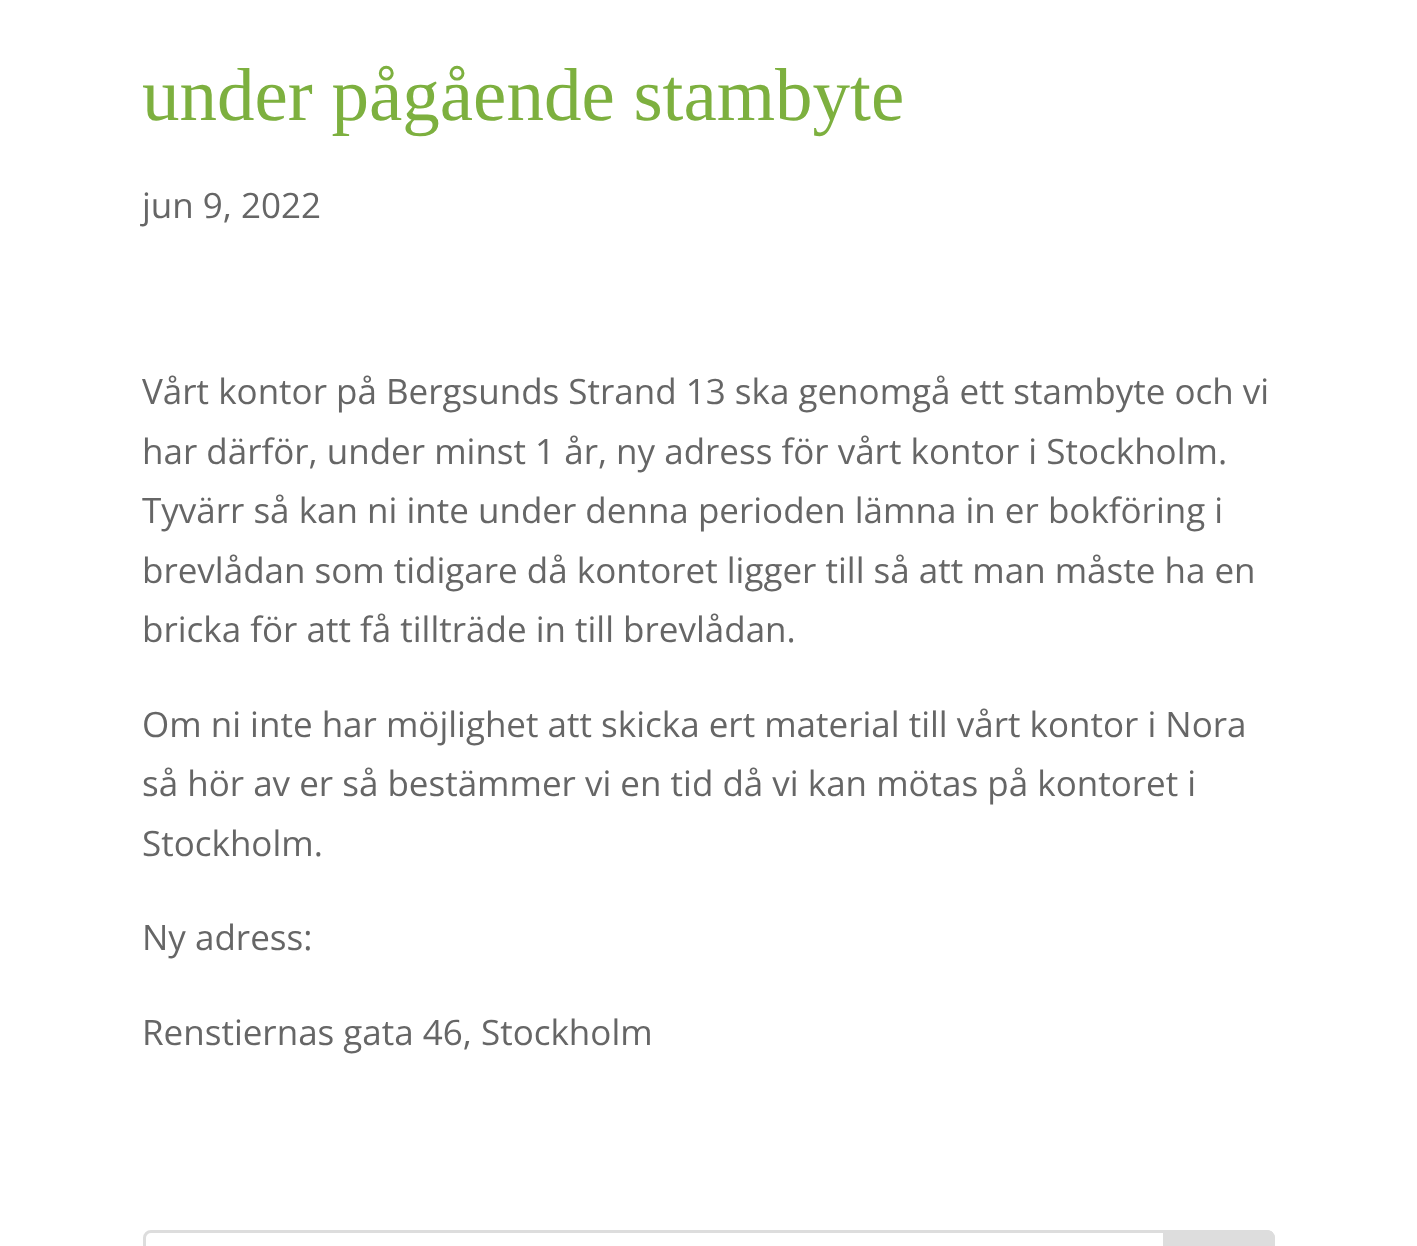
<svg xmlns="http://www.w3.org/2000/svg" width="1417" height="1246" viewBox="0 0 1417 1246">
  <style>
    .t1 { font: 75px Liberation Serif; fill: #7db03f; }
    .t2 { font: 35px Open Sans; fill: #666; }
  </style>
  <rect width="100%" height="100%" fill="#fff"/>
  <text x="142" y="120" class="t1">under pågående stambyte</text>
  <text x="142" y="218" class="t2">jun 9, 2022</text>
  <text x="142" y="404" class="t2">Vårt kontor på Bergsunds Strand 13 ska genomgå ett stambyte och vi</text>
  <text x="142" y="464" class="t2">har därför, under minst 1 år, ny adress för vårt kontor i Stockholm.</text>
  <text x="142" y="523" class="t2">Tyvärr så kan ni inte under denna perioden lämna in er bokföring i</text>
  <text x="142" y="583" class="t2">brevlådan som tidigare då kontoret ligger till så att man måste ha en</text>
  <text x="142" y="642" class="t2">bricka för att få tillträde in till brevlådan.</text>
  <text x="142" y="737" class="t2">Om ni inte har möjlighet att skicka ert material till vårt kontor i Nora</text>
  <text x="142" y="796" class="t2">så hör av er så bestämmer vi en tid då vi kan mötas på kontoret i</text>
  <text x="142" y="856" class="t2">Stockholm.</text>
  <text x="142" y="950" class="t2">Ny adress:</text>
  <text x="142" y="1045" class="t2">Renstiernas gata 46, Stockholm</text>
  <rect x="144.5" y="1231.5" width="1129" height="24" rx="6.5" fill="none" stroke="#ddd" stroke-width="3"/>
  <path d="M1164.5 1231.5H1267C1270.5 1231.5 1273.5 1234.5 1273.5 1238V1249C1273.5 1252.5 1270.5 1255.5 1267 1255.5H1164.5Z" fill="#ddd" stroke="#ddd" stroke-width="3"/>
</svg>
